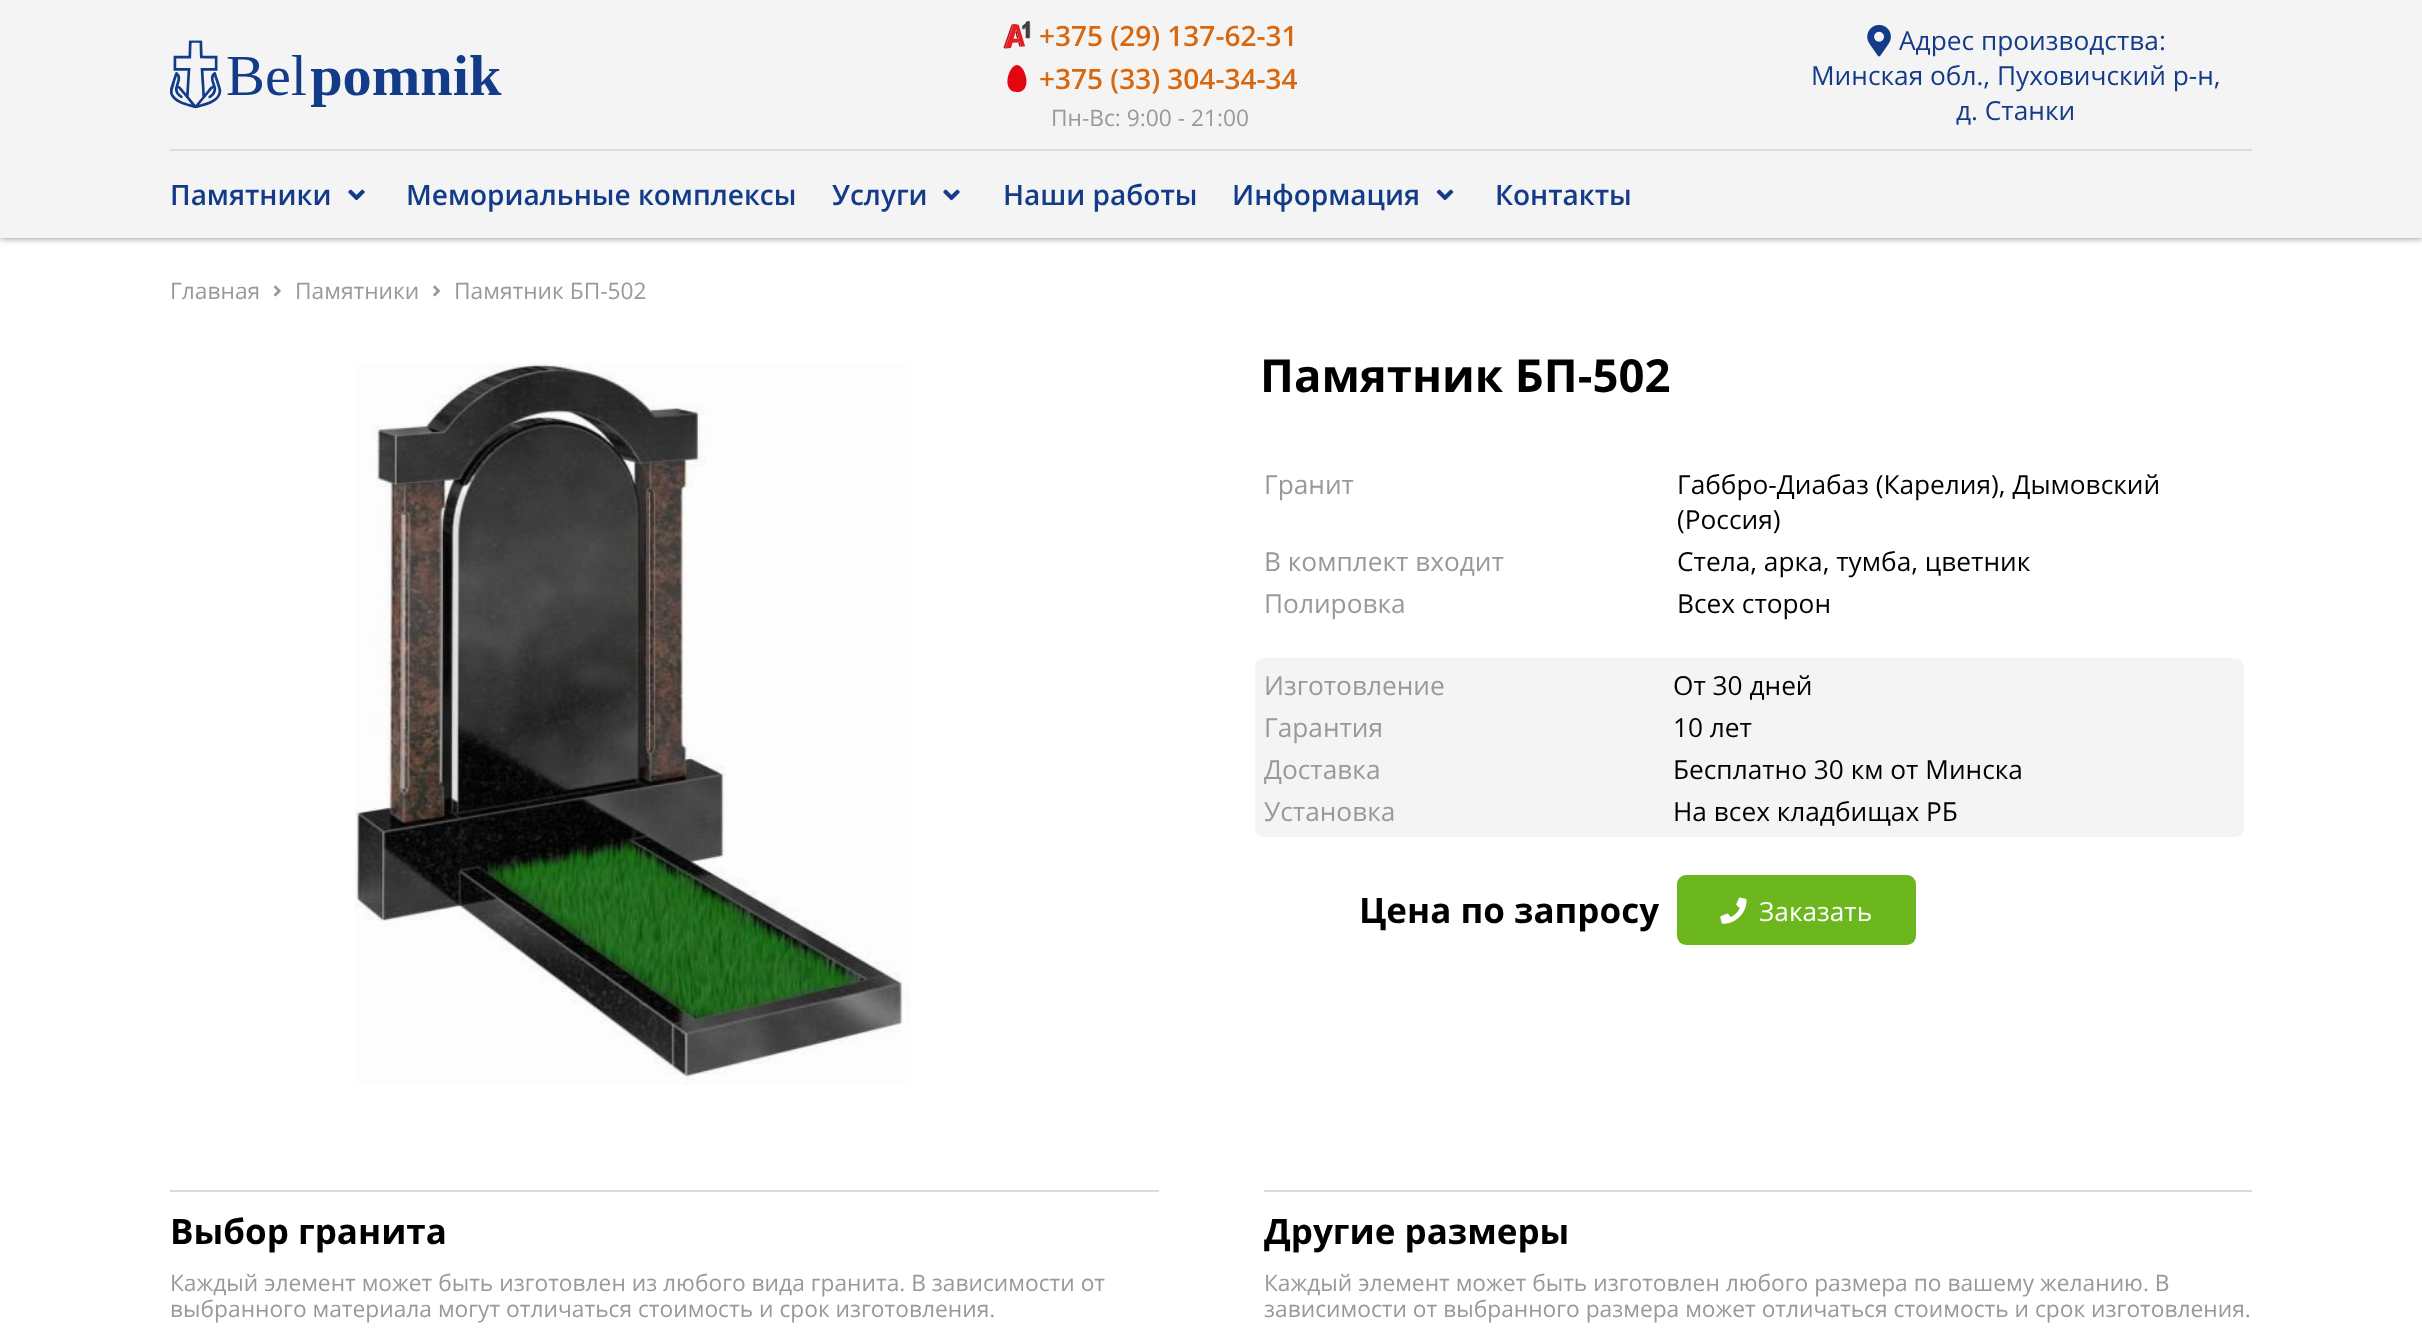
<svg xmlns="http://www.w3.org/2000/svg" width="2422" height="1341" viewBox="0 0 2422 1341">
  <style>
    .t1 { font: 600 28px Open Sans; fill: #d8670e; }
    .t2 { font: 22.75px Open Sans; fill: #999; }
    .t3 { font: 26.25px Open Sans; fill: #133b88; }
    .t4 { font: 600 28px Open Sans; fill: #133b88; }
    .t5 { font: bold 45.5px Open Sans; fill: #000; }
    .t6 { font: 26.25px Open Sans; fill: #999; }
    .t7 { font: 26.25px Open Sans; fill: #000; }
    .t8 { font: bold 35px Open Sans; fill: #000; }
    .t9 { font: 26.25px Open Sans; fill: #fff; }
  </style>
  <rect width="100%" height="100%" fill="#fff"/>
  <rect x="0" y="0" width="2422" height="238" fill="#00000080" filter="blur(3.5px)"/>
  <rect x="0" y="0" width="2422" height="238" fill="#f4f4f4"/>
  <image x="170" y="40" width="332" height="69" href="images/1.png"/>
  <image x="1003" y="21" width="28" height="28" href="images/2.png"/>
  <text x="1039" y="46" class="t1">+375 (29) 137-62-31</text>
  <path d="M1017 65C1008.5 65 1000.5 92 1017 92C1033 92 1025.5 65 1017 65" fill="#e30611"/>
  <text x="1039" y="89" class="t1">+375 (33) 304-34-34</text>
  <text x="1051" y="126" class="t2">Пн-Вс: 9:00 - 21:00</text>
  <image x="1867" y="24" width="24" height="33" href="images/3.png"/>
  <text x="1899" y="50" class="t3">Адрес производства:</text>
  <text x="1811" y="85" class="t3">Минская обл., Пуховичский р-н,</text>
  <text x="1956" y="120" class="t3">д. Станки</text>
  <rect x="170" y="149" width="2082" height="2" fill="#dbdbdb"/>
  <text x="170" y="205" class="t4">Памятники</text>
  <image x="348" y="189" width="17" height="12" href="images/4.png"/>
  <text x="406" y="205" class="t4">Мемориальные комплексы</text>
  <text x="832" y="205" class="t4">Услуги</text>
  <image x="943" y="189" width="17" height="12" href="images/4.png"/>
  <text x="1003" y="205" class="t4">Наши работы</text>
  <text x="1232" y="205" class="t4">Информация</text>
  <image x="1436" y="189" width="18" height="12" href="images/5.png"/>
  <text x="1495" y="205" class="t4">Контакты</text>
  <text x="170" y="299" class="t2">Главная</text>
  <image x="273" y="285" width="8" height="12" href="images/6.png"/>
  <text x="295" y="299" class="t2">Памятники</text>
  <image x="433" y="285" width="7" height="12" href="images/7.png"/>
  <text x="454" y="299" class="t2">Памятник БП-502</text>
  <image x="355" y="363" width="555" height="722" href="images/8.png"/>
  <text x="1260" y="392" class="t5">Памятник БП-502</text>
  <text x="1264" y="494" class="t6">Гранит</text>
  <text x="1677" y="494" class="t7">Габбро-Диабаз (Карелия), Дымовский</text>
  <text x="1677" y="529" class="t7">(Россия)</text>
  <text x="1264" y="571" class="t6">В комплект входит</text>
  <text x="1677" y="571" class="t7">Стела, арка, тумба, цветник</text>
  <text x="1264" y="613" class="t6">Полировка</text>
  <text x="1677" y="613" class="t7">Всех сторон</text>
  <rect x="1255" y="658" width="989" height="179" rx="9" fill="#f4f4f4"/>
  <text x="1264" y="695" class="t6">Изготовление</text>
  <text x="1673" y="695" class="t7">От 30 дней</text>
  <text x="1264" y="737" class="t6">Гарантия</text>
  <text x="1673" y="737" class="t7">10 лет</text>
  <text x="1264" y="779" class="t6">Доставка</text>
  <text x="1673" y="779" class="t7">Бесплатно 30 км от Минска</text>
  <text x="1264" y="821" class="t6">Установка</text>
  <text x="1673" y="821" class="t7">На всех кладбищах РБ</text>
  <text x="1359" y="923" class="t8">Цена по запросу</text>
  <rect x="1677" y="875" width="239" height="70" rx="9" fill="#6cb71d"/>
  <image x="1720" y="897" width="27" height="27" href="images/9.png"/>
  <text x="1759" y="921" class="t9">Заказать</text>
  <rect x="170" y="1190" width="989" height="2" fill="#dbdbdb"/>
  <text x="170" y="1244" class="t8">Выбор гранита</text>
  <text x="170" y="1291" class="t2">Каждый элемент может быть изготовлен из любого вида гранита. В зависимости от</text>
  <text x="170" y="1317" class="t2">выбранного материала могут отличаться стоимость и срок изготовления.</text>
  <rect x="1264" y="1190" width="988" height="2" fill="#dbdbdb"/>
  <text x="1264" y="1244" class="t8">Другие размеры</text>
  <text x="1264" y="1291" class="t2">Каждый элемент может быть изготовлен любого размера по вашему желанию. В</text>
  <text x="1264" y="1317" class="t2">зависимости от выбранного размера может отличаться стоимость и срок изготовления.</text>
</svg>
